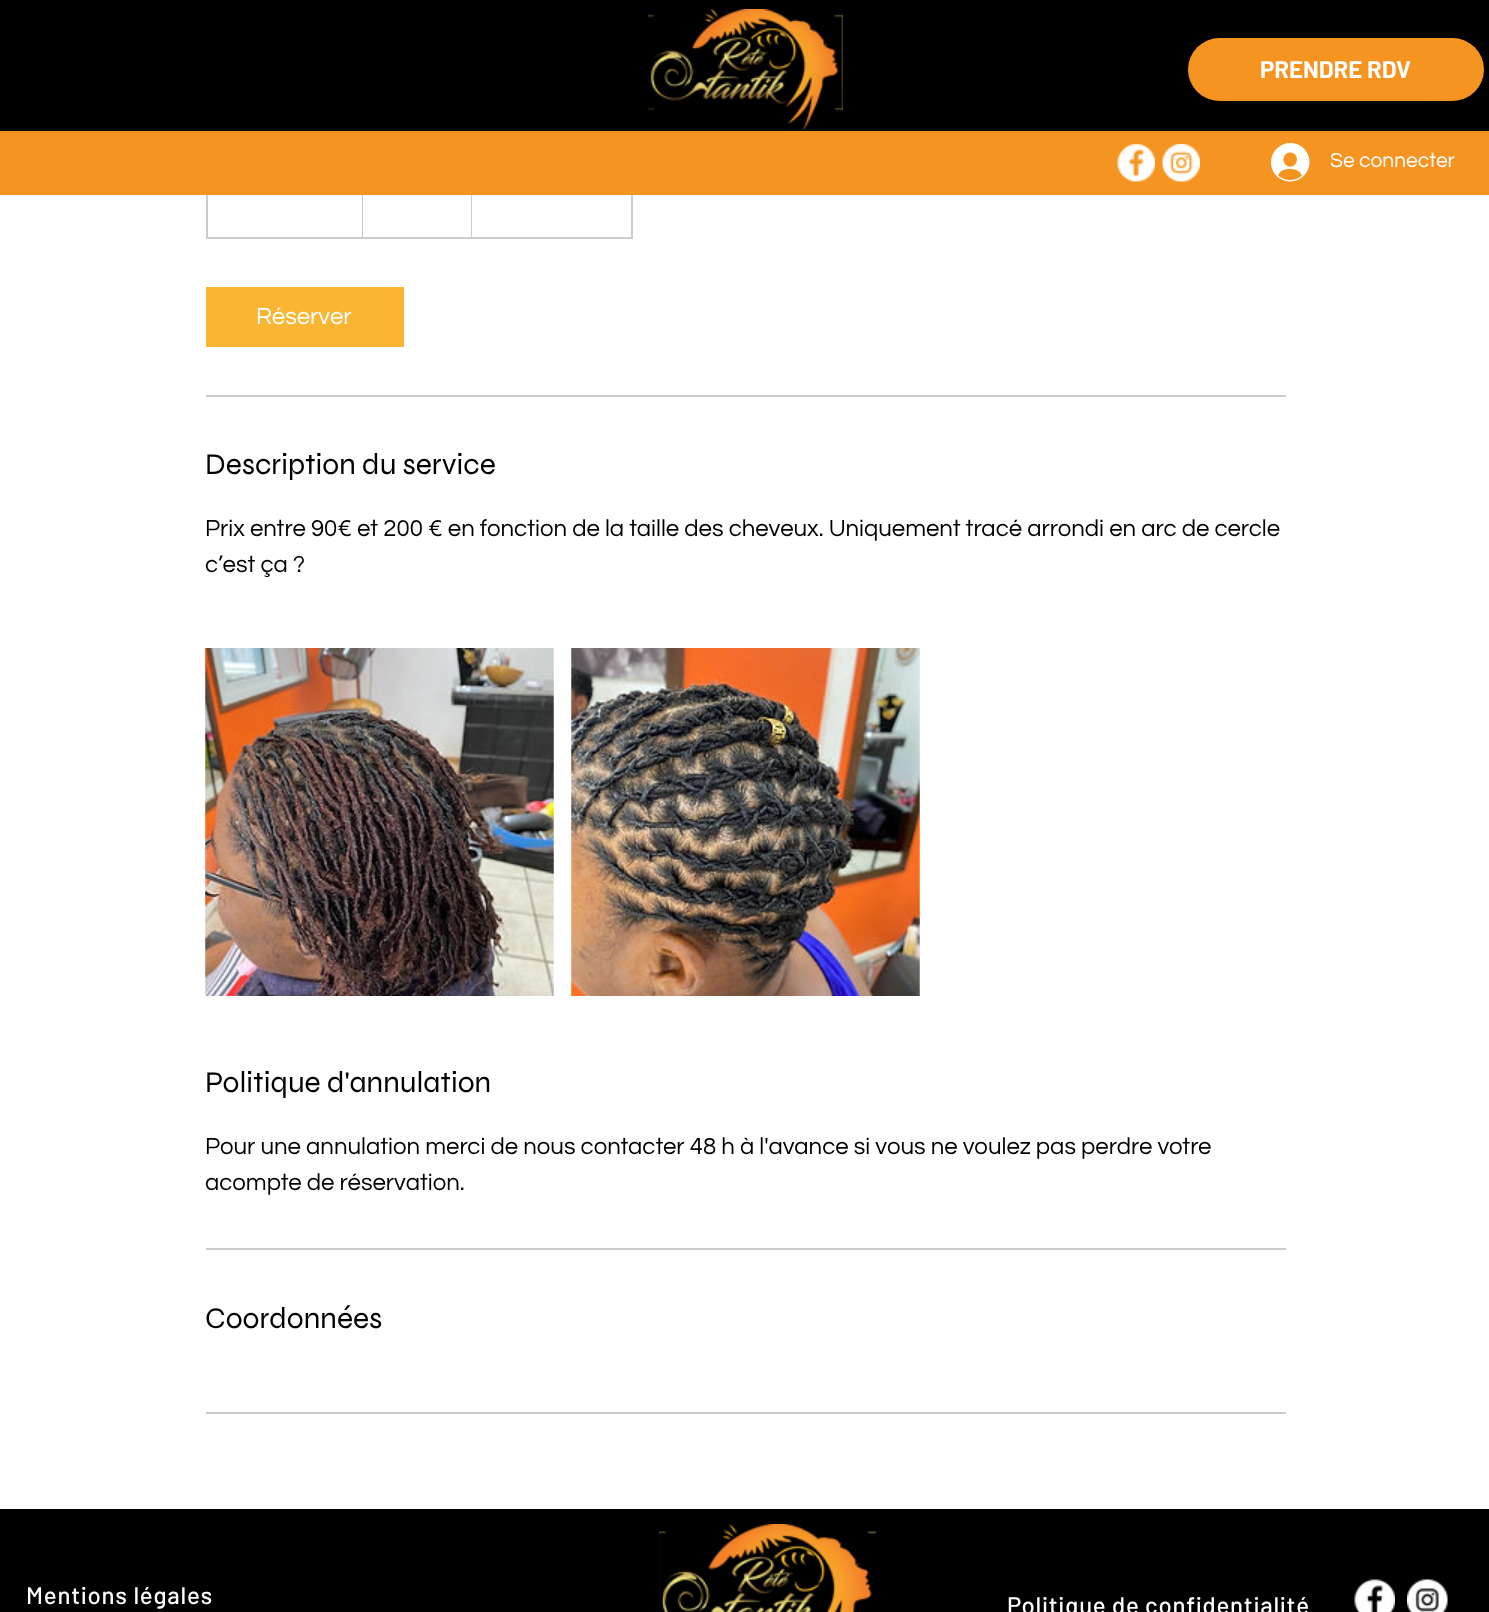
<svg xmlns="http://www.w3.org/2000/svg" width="1489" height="1612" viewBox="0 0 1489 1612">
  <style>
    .t1 { font: bold 24px Barlow; fill: #fff; }
    .t2 { font: 21px Questrial; fill: #fff; }
    .t3 { font: 24px Questrial; fill: #fff; }
    .t4 { font: 30px Syne; fill: #000; }
    .t5 { font: 24px Questrial; fill: #000; }
    .t6 { font: 500 24px Barlow; letter-spacing: 0.75px; fill: #fff; }
  </style>
  <rect width="100%" height="100%" fill="#fff"/>
  <rect x="0" y="0" width="1489" height="131" fill="#000"/>
  <image x="648" y="9" width="195" height="121" href="images/1.png"/>
  <rect x="1188" y="38" width="296" height="63" rx="31.5" fill="#f69421"/>
  <text x="1260" y="78" class="t1">PRENDRE RDV</text>
  <rect x="207" y="153" width="425" height="85" fill="none" stroke="#ccc" stroke-width="2"/>
  <path d="M362 237V152L363 153V237Z" fill="#00000033"/>
  <path d="M471 237V152L472 153V237Z" fill="#00000033"/>
  <rect x="0" y="131" width="1489" height="64" fill="#f69421"/>
  <image x="1117" y="144" width="38" height="38" href="images/2.png"/>
  <image x="1162" y="144" width="38" height="38" href="images/3.png"/>
  <image x="1271" y="143" width="39" height="39" href="images/4.png"/>
  <text x="1330" y="167" class="t2">Se connecter</text>
  <rect x="206" y="287" width="198" height="60" fill="#fab633"/>
  <text x="256" y="324" class="t3">Réserver</text>
  <rect x="206" y="395" width="1080" height="2" fill="#ccc"/>
  <text x="205" y="474" class="t4">Description du service</text>
  <text x="205" y="536" class="t5">Prix entre 90€ et 200 € en fonction de la taille des cheveux. Uniquement tracé arrondi en arc de cercle</text>
  <text x="205" y="572" class="t5">c’est ça ?</text>
  <image x="205" y="648" width="349" height="348" href="images/5.png"/>
  <image x="205" y="648" width="349" height="348" href="images/6.png"/>
  <image x="571" y="648" width="349" height="348" href="images/7.png"/>
  <image x="571" y="648" width="349" height="348" href="images/8.png"/>
  <text x="205" y="1092" class="t4">Politique d'annulation</text>
  <text x="205" y="1154" class="t5">Pour une annulation merci de nous contacter 48 h à l'avance si vous ne voulez pas perdre votre</text>
  <text x="205" y="1190" class="t5">acompte de réservation.</text>
  <rect x="206" y="1248" width="1080" height="2" fill="#ccc"/>
  <text x="205" y="1328" class="t4">Coordonnées</text>
  <rect x="206" y="1412" width="1080" height="2" fill="#ccc"/>
  <rect x="0" y="1509" width="1489" height="103" fill="#000"/>
  <image x="659" y="1524" width="217" height="88" href="images/9.png"/>
  <image x="1354" y="1579" width="41" height="33" href="images/10.png"/>
  <image x="1407" y="1579" width="41" height="33" href="images/11.png"/>
  <text x="26" y="1604" class="t6">Mentions légales</text>
  <text x="1007" y="1614" class="t6">Politique de confidentialité</text>
</svg>
